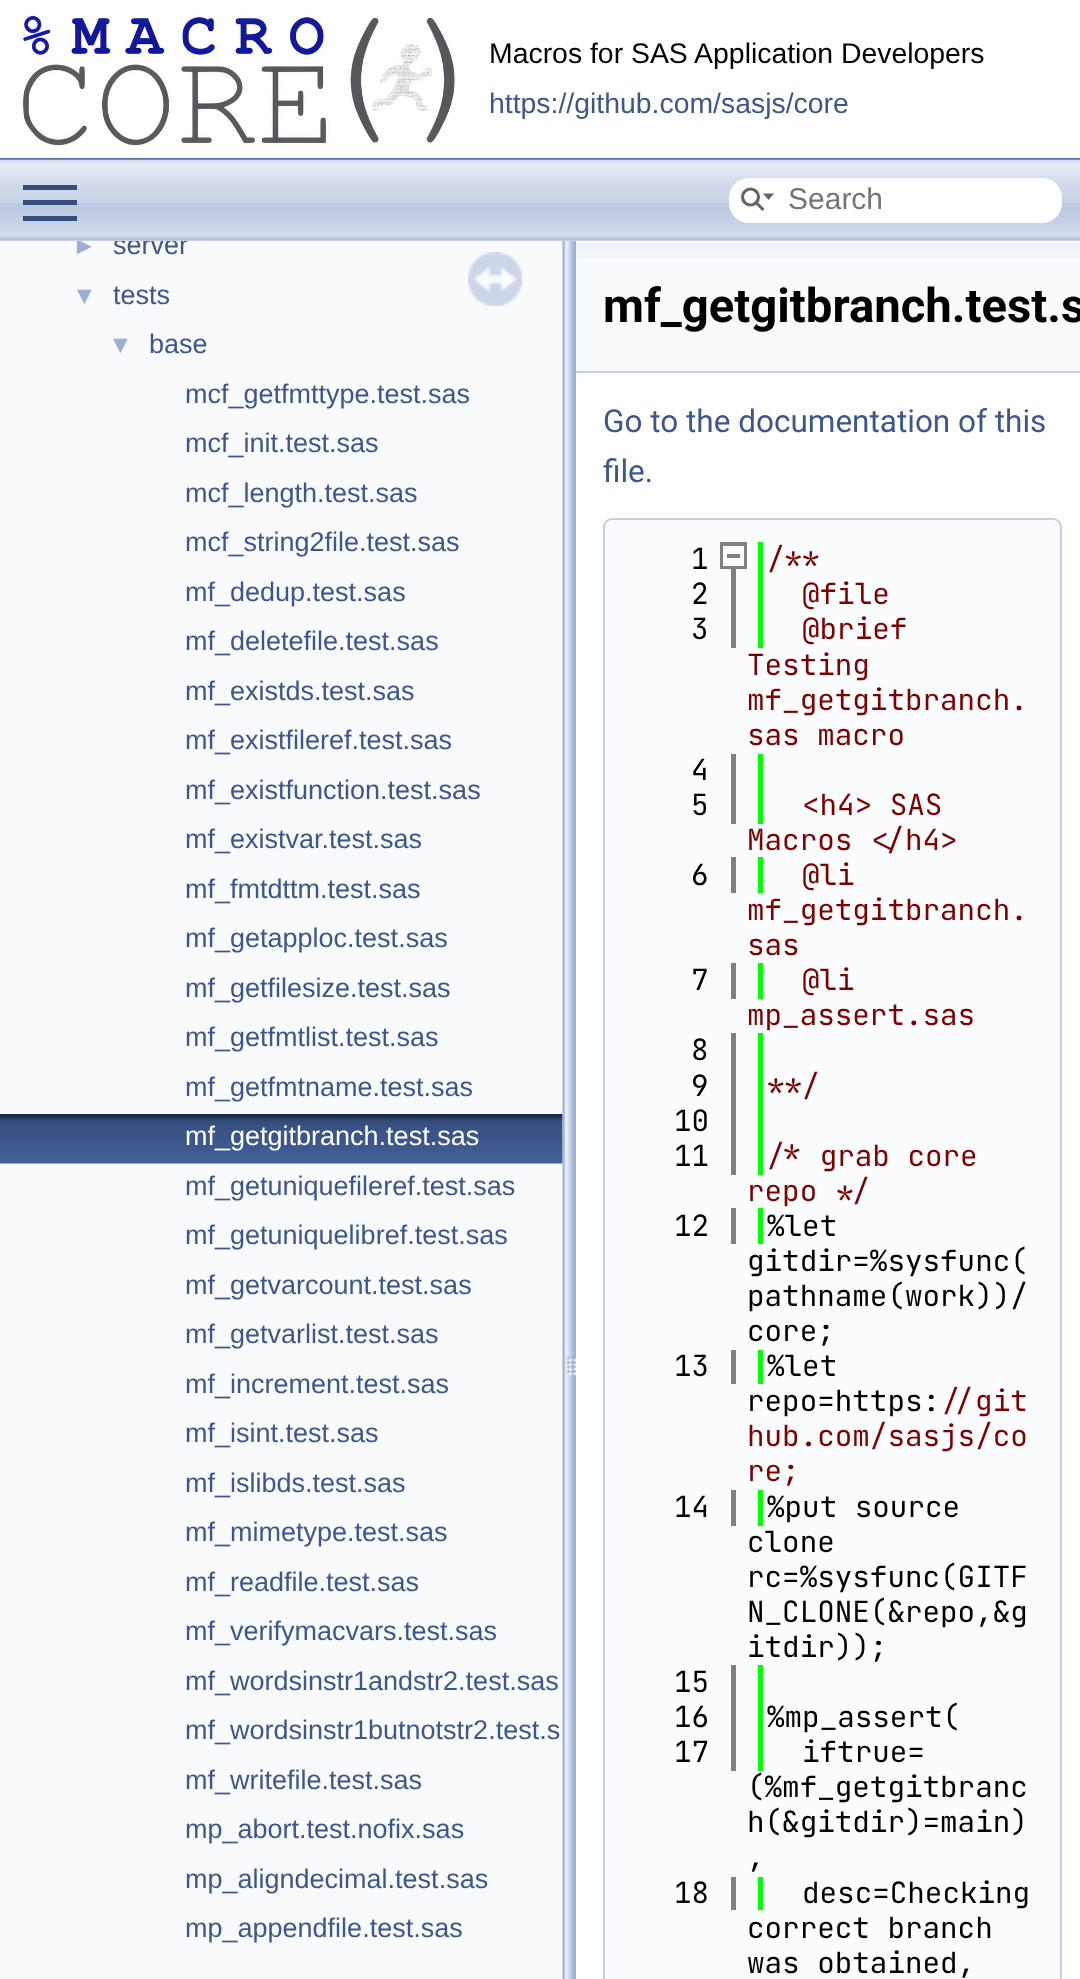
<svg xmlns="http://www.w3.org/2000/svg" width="1080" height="1979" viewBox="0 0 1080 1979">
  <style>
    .t1 { font: 28.4px Liberation Sans; fill: #000; }
    .t2 { font: 28.4px Liberation Sans; fill: #3d578c; }
    .t3 { font: 30px Liberation Sans; fill: #757575; }
    .t4 { font: 25px Liberation Sans; fill: #9cafd4; }
    .t5 { font: 27px Liberation Sans; fill: #3d578c; }
    .t6 { font: 27px Liberation Sans; fill: #fff; }
    .t7 { font: bold 47.25px Roboto; fill: #000; }
    .t8 { font: 31.5px Roboto; fill: #3d578c; }
    .t9 { font: 29.25px JetBrains Mono; fill: #000; }
    .t10 { font: 29.25px JetBrains Mono; fill: #800000; }
  </style>
  <defs>
    <clipPath id="clip1"><rect x="0" y="241" width="563" height="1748"/></clipPath>
  </defs>
  <rect width="100%" height="100%" fill="#fff"/>
  <rect x="0" y="158" width="1080" height="2" fill="#5373b4"/>
  <image x="22" y="14" width="434" height="132" href="images/1.png"/>
  <text x="489" y="63" class="t1">Macros for SAS Application Developers</text>
  <text x="489" y="113" class="t2">https://github.com/sasjs/core</text>
  <rect x="0" y="241" width="563" height="1738" fill="#f9fafc"/>
  <image x="0" y="1114" width="563" height="50" href="images/3.png"/>
  <image x="562" y="240" width="14" height="1739" href="images/5.png"/>
  <image x="0" y="159" width="1080" height="82" href="images/2.png"/>
  <rect x="23" y="200" width="54" height="5" fill="#364d7c"/>
  <rect x="23" y="185" width="54" height="5" fill="#364d7c"/>
  <rect x="23" y="216" width="54" height="5" fill="#364d7c"/>
  <rect x="729" y="178" width="333" height="45" rx="20" fill="#fff"/>
  <circle cx="750.5" cy="197" r="8" fill="none" stroke="#656565" stroke-width="3.1"/>
  <path d="M763 193.5L768.5 200L774 193.5Z" fill="#656565"/>
  <path d="M756 202.5L762.5 209" fill="none" stroke="#656565" stroke-width="3.1" stroke-linecap="round"/>
  <text x="788" y="209" class="t3">Search</text>
  <g clip-path="url(#clip1)">
    <text x="72" y="254" class="t4">►</text>
    <text x="113" y="254" class="t5">server</text>
  </g>
  <text x="72" y="304" class="t4">▼</text>
  <text x="113" y="304" class="t5">tests</text>
  <text x="108" y="353" class="t4">▼</text>
  <text x="149" y="353" class="t5">base</text>
  <text x="185" y="403" class="t5">mcf_getfmttype.test.sas</text>
  <text x="185" y="452" class="t5">mcf_init.test.sas</text>
  <text x="185" y="502" class="t5">mcf_length.test.sas</text>
  <text x="185" y="551" class="t5">mcf_string2file.test.sas</text>
  <text x="185" y="601" class="t5">mf_dedup.test.sas</text>
  <text x="185" y="650" class="t5">mf_deletefile.test.sas</text>
  <text x="185" y="700" class="t5">mf_existds.test.sas</text>
  <text x="185" y="749" class="t5">mf_existfileref.test.sas</text>
  <text x="185" y="799" class="t5">mf_existfunction.test.sas</text>
  <text x="185" y="848" class="t5">mf_existvar.test.sas</text>
  <text x="185" y="898" class="t5">mf_fmtdttm.test.sas</text>
  <text x="185" y="947" class="t5">mf_getapploc.test.sas</text>
  <text x="185" y="997" class="t5">mf_getfilesize.test.sas</text>
  <text x="185" y="1046" class="t5">mf_getfmtlist.test.sas</text>
  <text x="185" y="1096" class="t5">mf_getfmtname.test.sas</text>
  <text x="185" y="1145" class="t6">mf_getgitbranch.test.sas</text>
  <text x="185" y="1195" class="t5">mf_getuniquefileref.test.sas</text>
  <text x="185" y="1244" class="t5">mf_getuniquelibref.test.sas</text>
  <text x="185" y="1294" class="t5">mf_getvarcount.test.sas</text>
  <text x="185" y="1343" class="t5">mf_getvarlist.test.sas</text>
  <text x="185" y="1393" class="t5">mf_increment.test.sas</text>
  <text x="185" y="1442" class="t5">mf_isint.test.sas</text>
  <text x="185" y="1492" class="t5">mf_islibds.test.sas</text>
  <text x="185" y="1541" class="t5">mf_mimetype.test.sas</text>
  <text x="185" y="1591" class="t5">mf_readfile.test.sas</text>
  <text x="185" y="1640" class="t5">mf_verifymacvars.test.sas</text>
  <text x="185" y="1690" class="t5">mf_wordsinstr1andstr2.test.sas</text>
  <text x="185" y="1739" class="t5">mf_wordsinstr1butnotstr2.test.s</text>
  <text x="185" y="1789" class="t5">mf_writefile.test.sas</text>
  <text x="185" y="1838" class="t5">mp_abort.test.nofix.sas</text>
  <text x="185" y="1888" class="t5">mp_aligndecimal.test.sas</text>
  <text x="185" y="1937" class="t5">mp_appendfile.test.sas</text>
  <image x="468" y="252" width="54" height="54" href="images/4.png"/>
  <rect x="576" y="259" width="504" height="115" fill="#f9fafc"/>
  <image x="576" y="241" width="504" height="18" href="images/6.png"/>
  <rect x="576" y="371" width="504" height="2" fill="#c4cfe5"/>
  <text x="603" y="322" class="t7">mf_getgitbranch.test.s</text>
  <text x="603" y="432" class="t8">Go to the documentation of this</text>
  <text x="603" y="482" class="t8">file.</text>
  <path d="M612 518H1053C1058 518 1062 522 1062 527V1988H603V527C603 522 607 518 612 518Z" fill="#fbfcfd"/>
  <rect x="604" y="519" width="457" height="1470" rx="8" fill="none" stroke="#c4cfe5" stroke-width="2"/>
  <rect x="731" y="569" width="5" height="79" fill="#808080"/>
  <rect x="758" y="542" width="5" height="106" fill="#0f0"/>
  <text x="691" y="569" class="t9">1</text>
  <rect x="720" y="542" width="27" height="27" fill="#808080"/>
  <rect x="723" y="546" width="21" height="20" fill="#fcfcfc"/>
  <rect x="727" y="554" width="13" height="4" fill="#808080"/>
  <text x="767" y="569" class="t10">/**</text>
  <text x="691" y="604" class="t9">2</text>
  <text x="802" y="604" class="t10">@file</text>
  <text x="691" y="639" class="t9">3</text>
  <text x="802" y="639" class="t10">@brief</text>
  <text x="747" y="675" class="t10">Testing</text>
  <text x="747" y="710" class="t10">mf_getgitbranch.</text>
  <text x="747" y="745" class="t10">sas macro</text>
  <rect x="731" y="754" width="5" height="70" fill="#808080"/>
  <rect x="758" y="754" width="5" height="70" fill="#0f0"/>
  <text x="691" y="780" class="t9">4</text>
  <text x="691" y="815" class="t9">5</text>
  <text x="802" y="815" class="t10">&lt;h4&gt; SAS</text>
  <text x="747" y="850" class="t10">Macros &lt;/h4&gt;</text>
  <rect x="731" y="857" width="5" height="36" fill="#808080"/>
  <rect x="758" y="857" width="5" height="36" fill="#0f0"/>
  <text x="691" y="885" class="t9">6</text>
  <text x="802" y="885" class="t10">@li</text>
  <text x="747" y="920" class="t10">mf_getgitbranch.</text>
  <text x="747" y="955" class="t10">sas</text>
  <rect x="731" y="963" width="5" height="36" fill="#808080"/>
  <rect x="758" y="963" width="5" height="36" fill="#0f0"/>
  <text x="691" y="990" class="t9">7</text>
  <text x="802" y="990" class="t10">@li</text>
  <text x="747" y="1025" class="t10">mp_assert.sas</text>
  <rect x="731" y="1033" width="5" height="142" fill="#808080"/>
  <rect x="758" y="1033" width="5" height="142" fill="#0f0"/>
  <text x="691" y="1060" class="t9">8</text>
  <text x="691" y="1096" class="t9">9</text>
  <text x="767" y="1096" class="t10">**/</text>
  <text x="674" y="1131" class="t9">10</text>
  <text x="674" y="1166" class="t9">11</text>
  <text x="767" y="1166" class="t10">/* grab core</text>
  <text x="747" y="1201" class="t10">repo */</text>
  <rect x="731" y="1208" width="5" height="36" fill="#808080"/>
  <rect x="758" y="1208" width="5" height="36" fill="#0f0"/>
  <text x="674" y="1236" class="t9">12</text>
  <text x="767" y="1236" class="t9">%let</text>
  <text x="747" y="1271" class="t9">gitdir=%sysfunc(</text>
  <text x="747" y="1306" class="t9">pathname(work))/</text>
  <text x="747" y="1341" class="t9">core;</text>
  <rect x="731" y="1350" width="5" height="34" fill="#808080"/>
  <rect x="758" y="1350" width="5" height="34" fill="#0f0"/>
  <text x="674" y="1376" class="t9">13</text>
  <text x="767" y="1376" class="t9">%let</text>
  <text x="747" y="1411" class="t9">repo=https:</text>
  <text x="940" y="1411" class="t10">//git</text>
  <text x="747" y="1446" class="t10">hub.com/sasjs/co</text>
  <text x="747" y="1481" class="t10">re;</text>
  <rect x="731" y="1490" width="5" height="36" fill="#808080"/>
  <rect x="758" y="1490" width="5" height="36" fill="#0f0"/>
  <text x="674" y="1517" class="t9">14</text>
  <text x="767" y="1517" class="t9">%put source</text>
  <text x="747" y="1552" class="t9">clone</text>
  <text x="747" y="1587" class="t9">rc=%sysfunc(GITF</text>
  <text x="747" y="1622" class="t9">N_CLONE(&amp;repo,&amp;g</text>
  <text x="747" y="1657" class="t9">itdir));</text>
  <rect x="731" y="1665" width="5" height="106" fill="#808080"/>
  <rect x="758" y="1665" width="5" height="106" fill="#0f0"/>
  <text x="674" y="1692" class="t9">15</text>
  <text x="674" y="1727" class="t9">16</text>
  <text x="767" y="1727" class="t9">%mp_assert(</text>
  <text x="674" y="1762" class="t9">17</text>
  <text x="802" y="1762" class="t9">iftrue=</text>
  <text x="747" y="1797" class="t9">(%mf_getgitbranc</text>
  <text x="747" y="1832" class="t9">h(&amp;gitdir)=main)</text>
  <text x="747" y="1867" class="t9">,</text>
  <rect x="731" y="1877" width="5" height="33" fill="#808080"/>
  <rect x="758" y="1877" width="5" height="33" fill="#0f0"/>
  <text x="674" y="1903" class="t9">18</text>
  <text x="802" y="1903" class="t9">desc=Checking</text>
  <text x="747" y="1938" class="t9">correct branch</text>
  <text x="747" y="1973" class="t9">was obtained,</text>
</svg>
